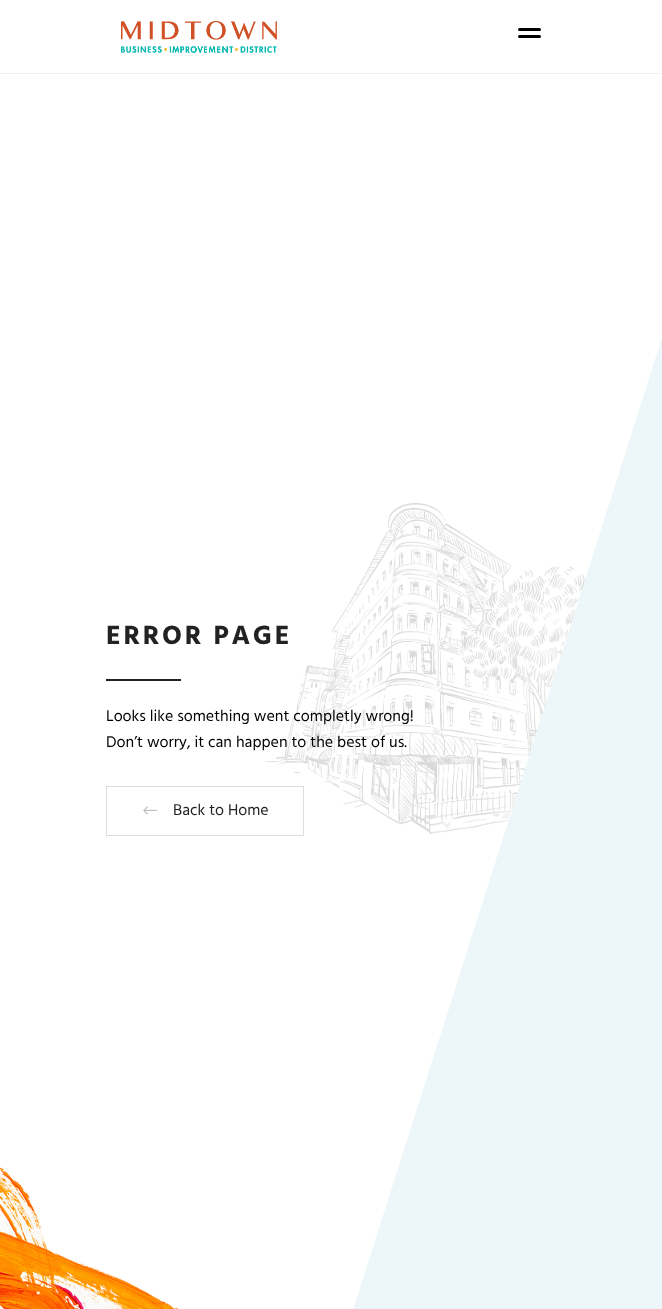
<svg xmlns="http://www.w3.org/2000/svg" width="662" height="1309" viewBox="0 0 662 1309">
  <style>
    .t1 { font: bold 27px Hind; letter-spacing: 2.75px; fill: #222; }
    .t2 { font: 16px Hind; fill: #000; }
    .t3 { font: 16px Hind; fill: #222; }
  </style>
  <defs>
    <linearGradient id="g1" gradientUnits="userSpaceOnUse" x1="196" y1="763" x2="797" y2="954"><stop offset="0.5" stop-color="#edf7fa" stop-opacity="0"/><stop offset="0.5" stop-color="#edf7fa"/></linearGradient>
  </defs>
  <rect width="100%" height="100%" fill="#fff"/>
  <rect x="0" y="73" width="662" height="1" fill="#f1f1f1"/>
  <image x="121" y="21" width="156" height="32" href="images/1.png"/>
  <rect x="518" y="28" width="23" height="3" rx="1.5" fill="#000"/>
  <rect x="518" y="35" width="23" height="3" rx="1.5" fill="#000"/>
  <image x="0" y="503" width="585" height="806" href="images/2.png"/>
  <text x="106" y="644" class="t1">ERROR PAGE</text>
  <rect x="106" y="679" width="75" height="2" fill="#222"/>
  <rect x="353" y="339" width="309" height="970" fill="url(#g1)"/>
  <text x="106" y="721" class="t2">Looks like something went completly wrong!</text>
  <text x="106" y="747" class="t2">Don’t worry, it can happen to the best of us.</text>
  <rect x="106.5" y="786.5" width="197" height="49" fill="none" stroke="#ddd"/>
  <image x="143" y="806" width="14" height="9" href="images/3.png"/>
  <text x="173" y="815" class="t3">Back to Home</text>
</svg>
